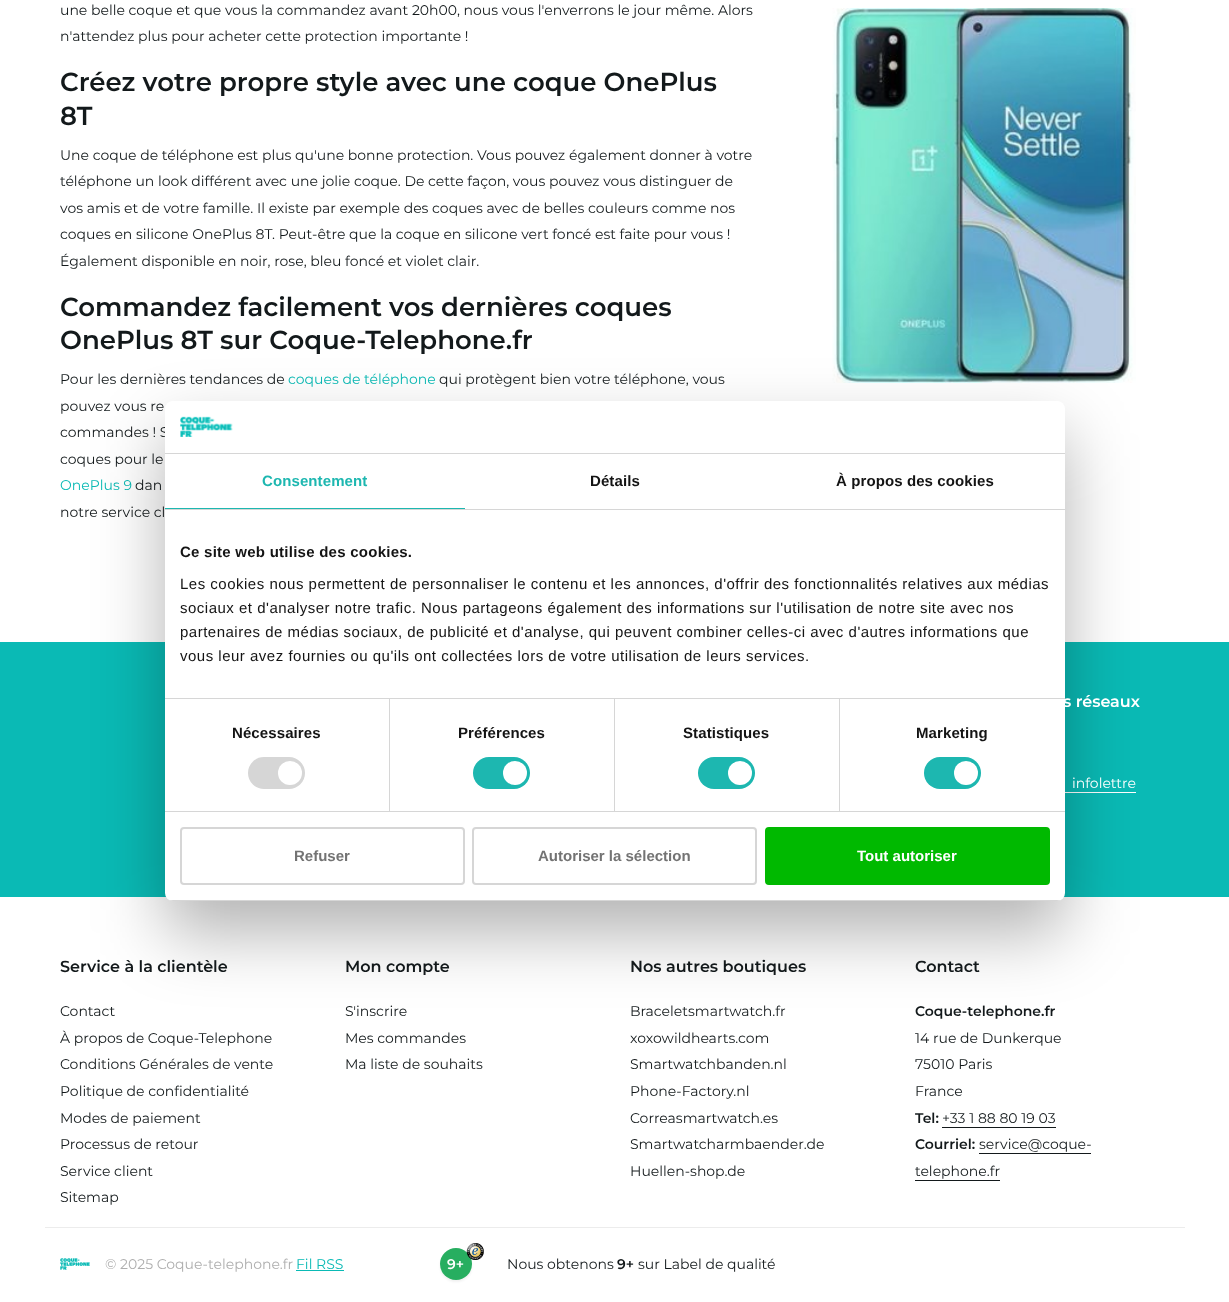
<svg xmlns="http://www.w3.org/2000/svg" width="1229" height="1302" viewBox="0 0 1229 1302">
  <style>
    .t1 { font: 14px Montserrat; fill: #13191b; }
    .t2 { font: 600 26px Montserrat; fill: #13191b; }
    .t3 { font: 14px Montserrat; fill: #0abab5; }
    .t4 { font: bold 15px Liberation Sans; letter-spacing: 0.1px; fill: #1db7b0; }
    .t5 { font: bold 15px Liberation Sans; letter-spacing: 0.1px; fill: #141414; }
    .t6 { font: 600 16px Montserrat; fill: #fff; }
    .t7 { font: bold 15px Liberation Sans; letter-spacing: 0.25px; fill: #141414; }
    .t8 { font: 15px Liberation Sans; letter-spacing: 0.5px; fill: #141414; }
    .t9 { font: bold 15px Liberation Sans; fill: #737373; }
    .t10 { font: bold 15px Liberation Sans; fill: #fff; }
    .t11 { font: 14px Montserrat; fill: #fff; }
    .t12 { font: 600 16px Montserrat; fill: #13191b; }
    .t13 { font: 600 14px Montserrat; fill: #13191b; }
    .t14 { font: 14px Montserrat; fill: #aeaeae; }
    .t15 { font: 600 14px Montserrat; fill: #fff; }
  </style>
  <defs>
    <clipPath id="clip1"><rect x="165" y="401" width="900" height="500" rx="8"/></clipPath>
  </defs>
  <rect width="100%" height="100%" fill="#fff"/>
  <text x="60" y="15" class="t1">une belle coque et que vous la commandez avant 20h00, nous vous l'enverrons le jour même. Alors</text>
  <text x="60" y="41" class="t1">n'attendez plus pour acheter cette protection importante !</text>
  <text x="60" y="91" class="t2">Créez votre propre style avec une coque OnePlus</text>
  <text x="60" y="125" class="t2">8T</text>
  <text x="60" y="160" class="t1">Une coque de téléphone est plus qu'une bonne protection. Vous pouvez également donner à votre</text>
  <text x="60" y="186" class="t1">téléphone un look différent avec une jolie coque. De cette façon, vous pouvez vous distinguer de</text>
  <text x="60" y="213" class="t1">vos amis et de votre famille. Il existe par exemple des coques avec de belles couleurs comme nos</text>
  <text x="60" y="239" class="t1">coques en silicone OnePlus 8T. Peut-être que la coque en silicone vert foncé est faite pour vous !</text>
  <text x="60" y="266" class="t1">Également disponible en noir, rose, bleu foncé et violet clair.</text>
  <text x="60" y="316" class="t2">Commandez facilement vos dernières coques</text>
  <text x="60" y="349" class="t2">OnePlus 8T sur Coque-Telephone.fr</text>
  <text x="60" y="384" class="t1">Pour les dernières tendances de</text>
  <text x="288" y="384" class="t3">coques de téléphone</text>
  <text x="439" y="384" class="t1">qui protègent bien votre téléphone, vous</text>
  <text x="60" y="411" class="t1">pouvez vous re</text>
  <text x="60" y="437" class="t1">commandes ! S</text>
  <text x="60" y="464" class="t1">coques pour le</text>
  <text x="60" y="490" class="t3">OnePlus 9</text>
  <text x="135" y="490" class="t1">dan</text>
  <text x="60" y="517" class="t1">notre service cl</text>
  <image x="832" y="8" width="304" height="375" href="images/1.png"/>
  <rect x="0" y="642" width="1229" height="255" fill="#0abab5"/>
  <rect x="1065" y="792" width="71" height="1" fill="#fff"/>
  <rect x="165" y="433" width="900" height="500" rx="8" fill="#0000004d" filter="blur(34px)"/>
  <rect x="165" y="401" width="900" height="500" rx="8" fill="#fff"/>
  <rect x="165" y="453" width="900" height="1" fill="#d6d6d6"/>
  <image x="180" y="416" width="53" height="21" href="images/2.png"/>
  <rect x="165" y="509" width="900" height="1" fill="#d6d6d6"/>
  <rect x="165" y="508" width="300" height="1" fill="#1db7b0"/>
  <text x="262" y="486" class="t4">Consentement</text>
  <text x="590" y="486" class="t5">Détails</text>
  <text x="836" y="486" class="t5">À propos des cookies</text>
  <text x="1063" y="707" class="t6">s réseaux</text>
  <rect x="165" y="698" width="900" height="1" fill="#d6d6d6"/>
  <text x="180" y="557" class="t7">Ce site web utilise des cookies.</text>
  <text x="180" y="589" class="t8">Les cookies nous permettent de personnaliser le contenu et les annonces, d'offrir des fonctionnalités relatives aux médias</text>
  <text x="180" y="613" class="t8">sociaux et d'analyser notre trafic. Nous partageons également des informations sur l'utilisation de notre site avec nos</text>
  <text x="180" y="637" class="t8">partenaires de médias sociaux, de publicité et d'analyse, qui peuvent combiner celles-ci avec d'autres informations que</text>
  <text x="180" y="661" class="t8">vous leur avez fournies ou qu'ils ont collectées lors de votre utilisation de leurs services.</text>
  <rect x="165" y="811" width="900" height="1" fill="#d6d6d6"/>
  <rect x="389" y="699" width="1" height="112" fill="#d6d6d6"/>
  <text x="232" y="738" class="t5">Nécessaires</text>
  <rect x="248" y="757" width="57" height="32" rx="16" fill="#d6d6d6"/>
  <circle cx="290" cy="773" r="12" fill="#fff"/>
  <rect x="614" y="699" width="1" height="112" fill="#d6d6d6"/>
  <text x="458" y="738" class="t5">Préférences</text>
  <rect x="473" y="757" width="57" height="32" rx="16" fill="#1db7b0"/>
  <circle cx="515" cy="773" r="12" fill="#fff"/>
  <rect x="839" y="699" width="1" height="112" fill="#d6d6d6"/>
  <text x="683" y="738" class="t5">Statistiques</text>
  <rect x="698" y="757" width="57" height="32" rx="16" fill="#1db7b0"/>
  <circle cx="740" cy="773" r="12" fill="#fff"/>
  <text x="916" y="738" class="t5">Marketing</text>
  <rect x="924" y="757" width="57" height="32" rx="16" fill="#1db7b0"/>
  <circle cx="966" cy="773" r="12" fill="#fff"/>
  <g clip-path="url(#clip1)">
    <rect x="165" y="900" width="900" height="1" fill="#d6d6d6"/>
  </g>
  <rect x="181" y="828" width="283" height="56" rx="3" fill="none" stroke="#d6d6d6" stroke-width="2"/>
  <text x="294" y="861" class="t9">Refuser</text>
  <rect x="473" y="828" width="283" height="56" rx="3" fill="none" stroke="#d6d6d6" stroke-width="2"/>
  <text x="538" y="861" class="t9">Autoriser la sélection</text>
  <rect x="766" y="828" width="283" height="56" rx="3" fill="#00b900" stroke="#00b900" stroke-width="2"/>
  <text x="857" y="861" class="t10">Tout autoriser</text>
  <text x="1072" y="788" class="t11">infolettre</text>
  <text x="60" y="972" class="t12">Service à la clientèle</text>
  <text x="60" y="1016" class="t1">Contact</text>
  <text x="60" y="1043" class="t1">À propos de Coque-Telephone</text>
  <text x="60" y="1069" class="t1">Conditions Générales de vente</text>
  <text x="60" y="1096" class="t1">Politique de confidentialité</text>
  <text x="60" y="1123" class="t1">Modes de paiement</text>
  <text x="60" y="1149" class="t1">Processus de retour</text>
  <text x="60" y="1176" class="t1">Service client</text>
  <text x="60" y="1202" class="t1">Sitemap</text>
  <text x="345" y="972" class="t12">Mon compte</text>
  <text x="345" y="1016" class="t1">S'inscrire</text>
  <text x="345" y="1043" class="t1">Mes commandes</text>
  <text x="345" y="1069" class="t1">Ma liste de souhaits</text>
  <text x="630" y="972" class="t12">Nos autres boutiques</text>
  <text x="630" y="1016" class="t1">Braceletsmartwatch.fr</text>
  <text x="630" y="1043" class="t1">xoxowildhearts.com</text>
  <text x="630" y="1069" class="t1">Smartwatchbanden.nl</text>
  <text x="630" y="1096" class="t1">Phone-Factory.nl</text>
  <text x="630" y="1123" class="t1">Correasmartwatch.es</text>
  <text x="630" y="1149" class="t1">Smartwatcharmbaender.de</text>
  <text x="630" y="1176" class="t1">Huellen-shop.de</text>
  <text x="915" y="972" class="t12">Contact</text>
  <text x="915" y="1016" class="t13">Coque-telephone.fr</text>
  <text x="915" y="1043" class="t1">14 rue de Dunkerque</text>
  <text x="915" y="1069" class="t1">75010 Paris</text>
  <text x="915" y="1096" class="t1">France</text>
  <text x="915" y="1123" class="t13">Tel:</text>
  <text x="942" y="1123" class="t1">+33 1 88 80 19 03</text>
  <rect x="942" y="1127" width="114" height="1" fill="#13191b"/>
  <text x="915" y="1149" class="t13">Courriel:</text>
  <text x="979" y="1149" class="t1">service@coque-</text>
  <rect x="979" y="1153" width="112" height="1" fill="#13191b"/>
  <text x="915" y="1176" class="t1">telephone.fr</text>
  <rect x="915" y="1180" width="85" height="1" fill="#13191b"/>
  <rect x="45" y="1227" width="1140" height="1" fill="#ececec"/>
  <image x="60" y="1258" width="30" height="12" href="images/3.png"/>
  <text x="105" y="1269" class="t14">© 2025 Coque-telephone.fr</text>
  <text x="296" y="1269" class="t3">Fil RSS</text>
  <rect x="296" y="1270" width="48" height="1" fill="#0abab5"/>
  <rect x="440" y="1250" width="32" height="32" rx="16" fill="#0000000f" filter="blur(1px)"/>
  <circle cx="456" cy="1264" r="16" fill="#27ae60"/>
  <image x="466" y="1243" width="18" height="17" href="images/4.png"/>
  <text x="447" y="1269" class="t15">9+</text>
  <text x="507" y="1269" class="t1">Nous obtenons</text>
  <text x="617" y="1269" class="t13">9+</text>
  <text x="638" y="1269" class="t1">sur Label de qualité</text>
</svg>
